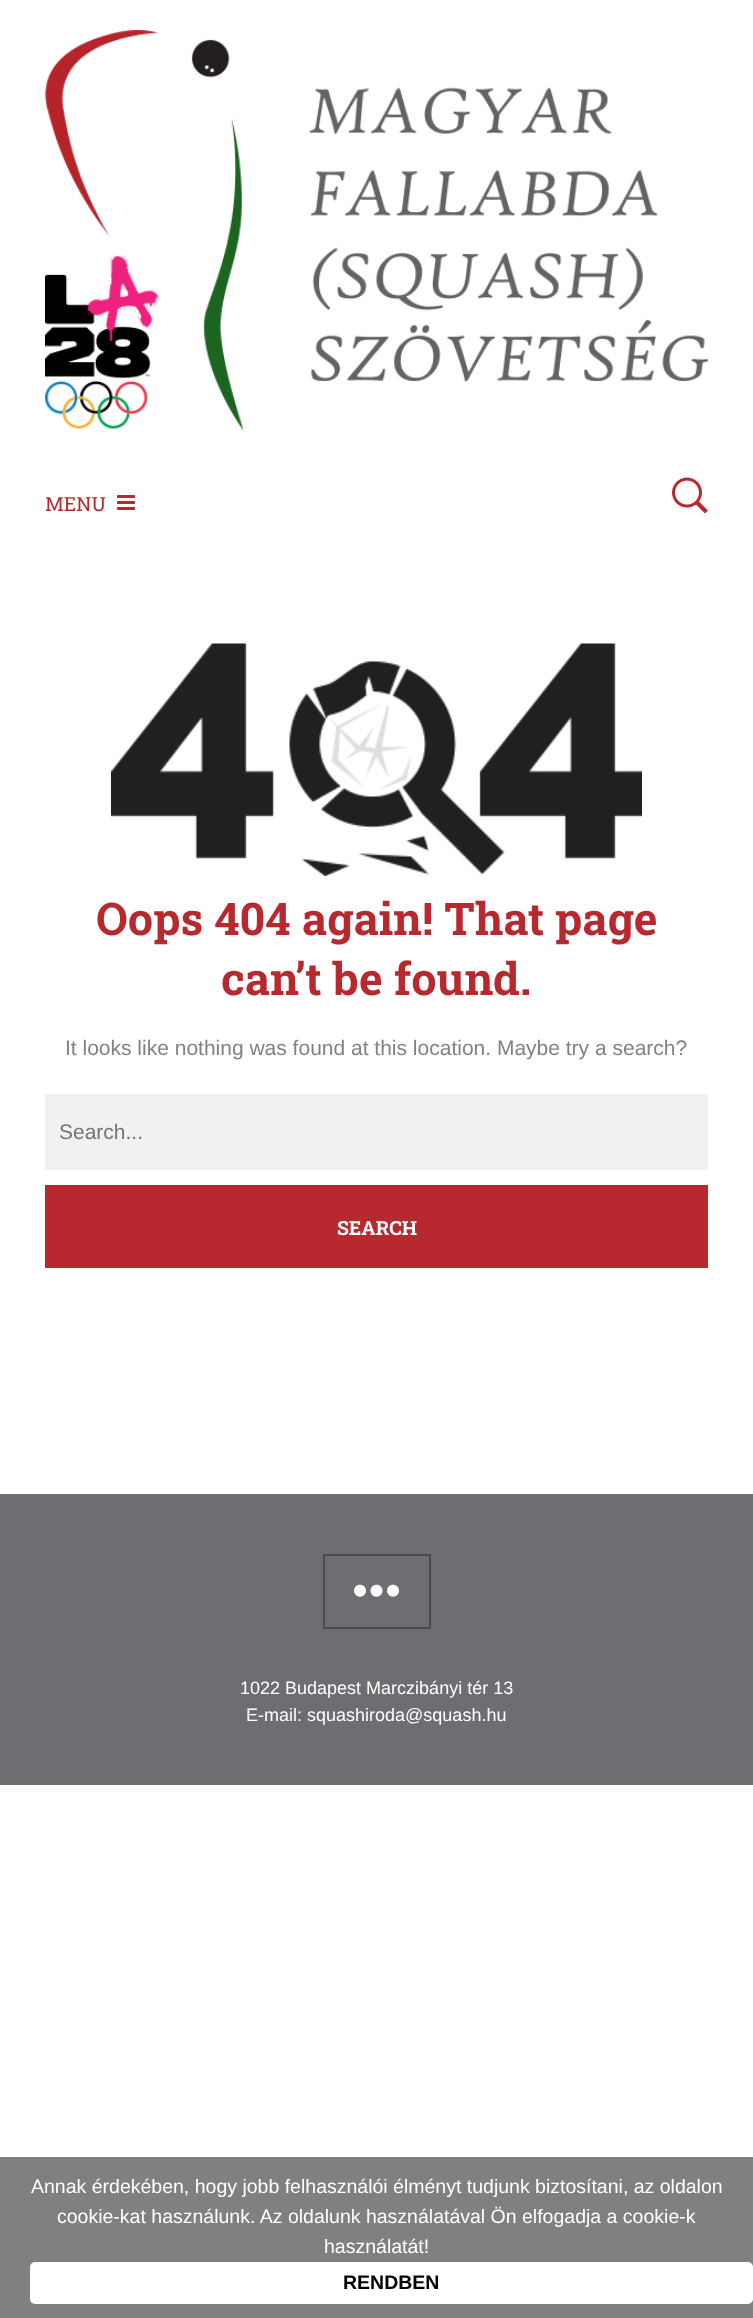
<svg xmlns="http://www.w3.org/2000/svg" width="753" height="2318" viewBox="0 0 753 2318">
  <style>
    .t1 { font: 19.5px Roboto Slab; fill: #b8292f; }
    .t2 { font: bold 45px Roboto Slab; fill: #b8292f; }
    .t3 { font: 21px Arimo; fill: #828282; }
    .t4 { font: 21px Arimo; fill: #757575; }
    .t5 { font: bold 19.5px Roboto Slab; fill: #fff; }
    .t6 { font: 18px Arimo; fill: #fff; }
    .t7 { font: 19.5px Liberation Sans; fill: #fff; }
    .t8 { font: bold 19.5px Liberation Sans; fill: #000; }
  </style>
  <rect width="100%" height="100%" fill="#fff"/>
  <image x="45" y="30" width="663" height="401" href="images/1.png"/>
  <text x="45" y="511" class="t1">MENU</text>
  <image x="117" y="495" width="18" height="15" href="images/2.png"/>
  <image x="672" y="477" width="36" height="36" href="images/3.png"/>
  <image x="111" y="643" width="531" height="233" href="images/4.png"/>
  <text x="96" y="935" class="t2">Oops 404 again! That page</text>
  <text x="221" y="995" class="t2">can’t be found.</text>
  <text x="65" y="1055" class="t3">It looks like nothing was found at this location. Maybe try a search?</text>
  <rect x="45" y="1094" width="663" height="76" fill="#f1f1f1"/>
  <text x="59" y="1139" class="t4">Search...</text>
  <rect x="45" y="1185" width="663" height="83" fill="#b8292f"/>
  <text x="337" y="1235" class="t5">SEARCH</text>
  <rect x="0" y="1494" width="753" height="291" fill="#6d6e71"/>
  <rect x="324" y="1555" width="106" height="73" fill="none" stroke="#4b4b4c" stroke-width="2"/>
  <image x="354" y="1584" width="45" height="13" href="images/5.png"/>
  <text x="240" y="1694" class="t6">1022 Budapest Marczibányi tér 13</text>
  <text x="246" y="1721" class="t6">E-mail: squashiroda@squash.hu</text>
  <rect x="0" y="2157" width="753" height="161" fill="#808080"/>
  <text x="31" y="2193" class="t7">Annak érdekében, hogy jobb felhasználói élményt tudjunk biztosítani, az oldalon</text>
  <text x="57" y="2223" class="t7">cookie-kat használunk. Az oldalunk használatával Ön elfogadja a cookie-k</text>
  <text x="324" y="2253" class="t7">használatát!</text>
  <rect x="30" y="2262" width="723" height="42" rx="5" fill="#fff"/>
  <text x="343" y="2289" class="t8">RENDBEN</text>
</svg>
